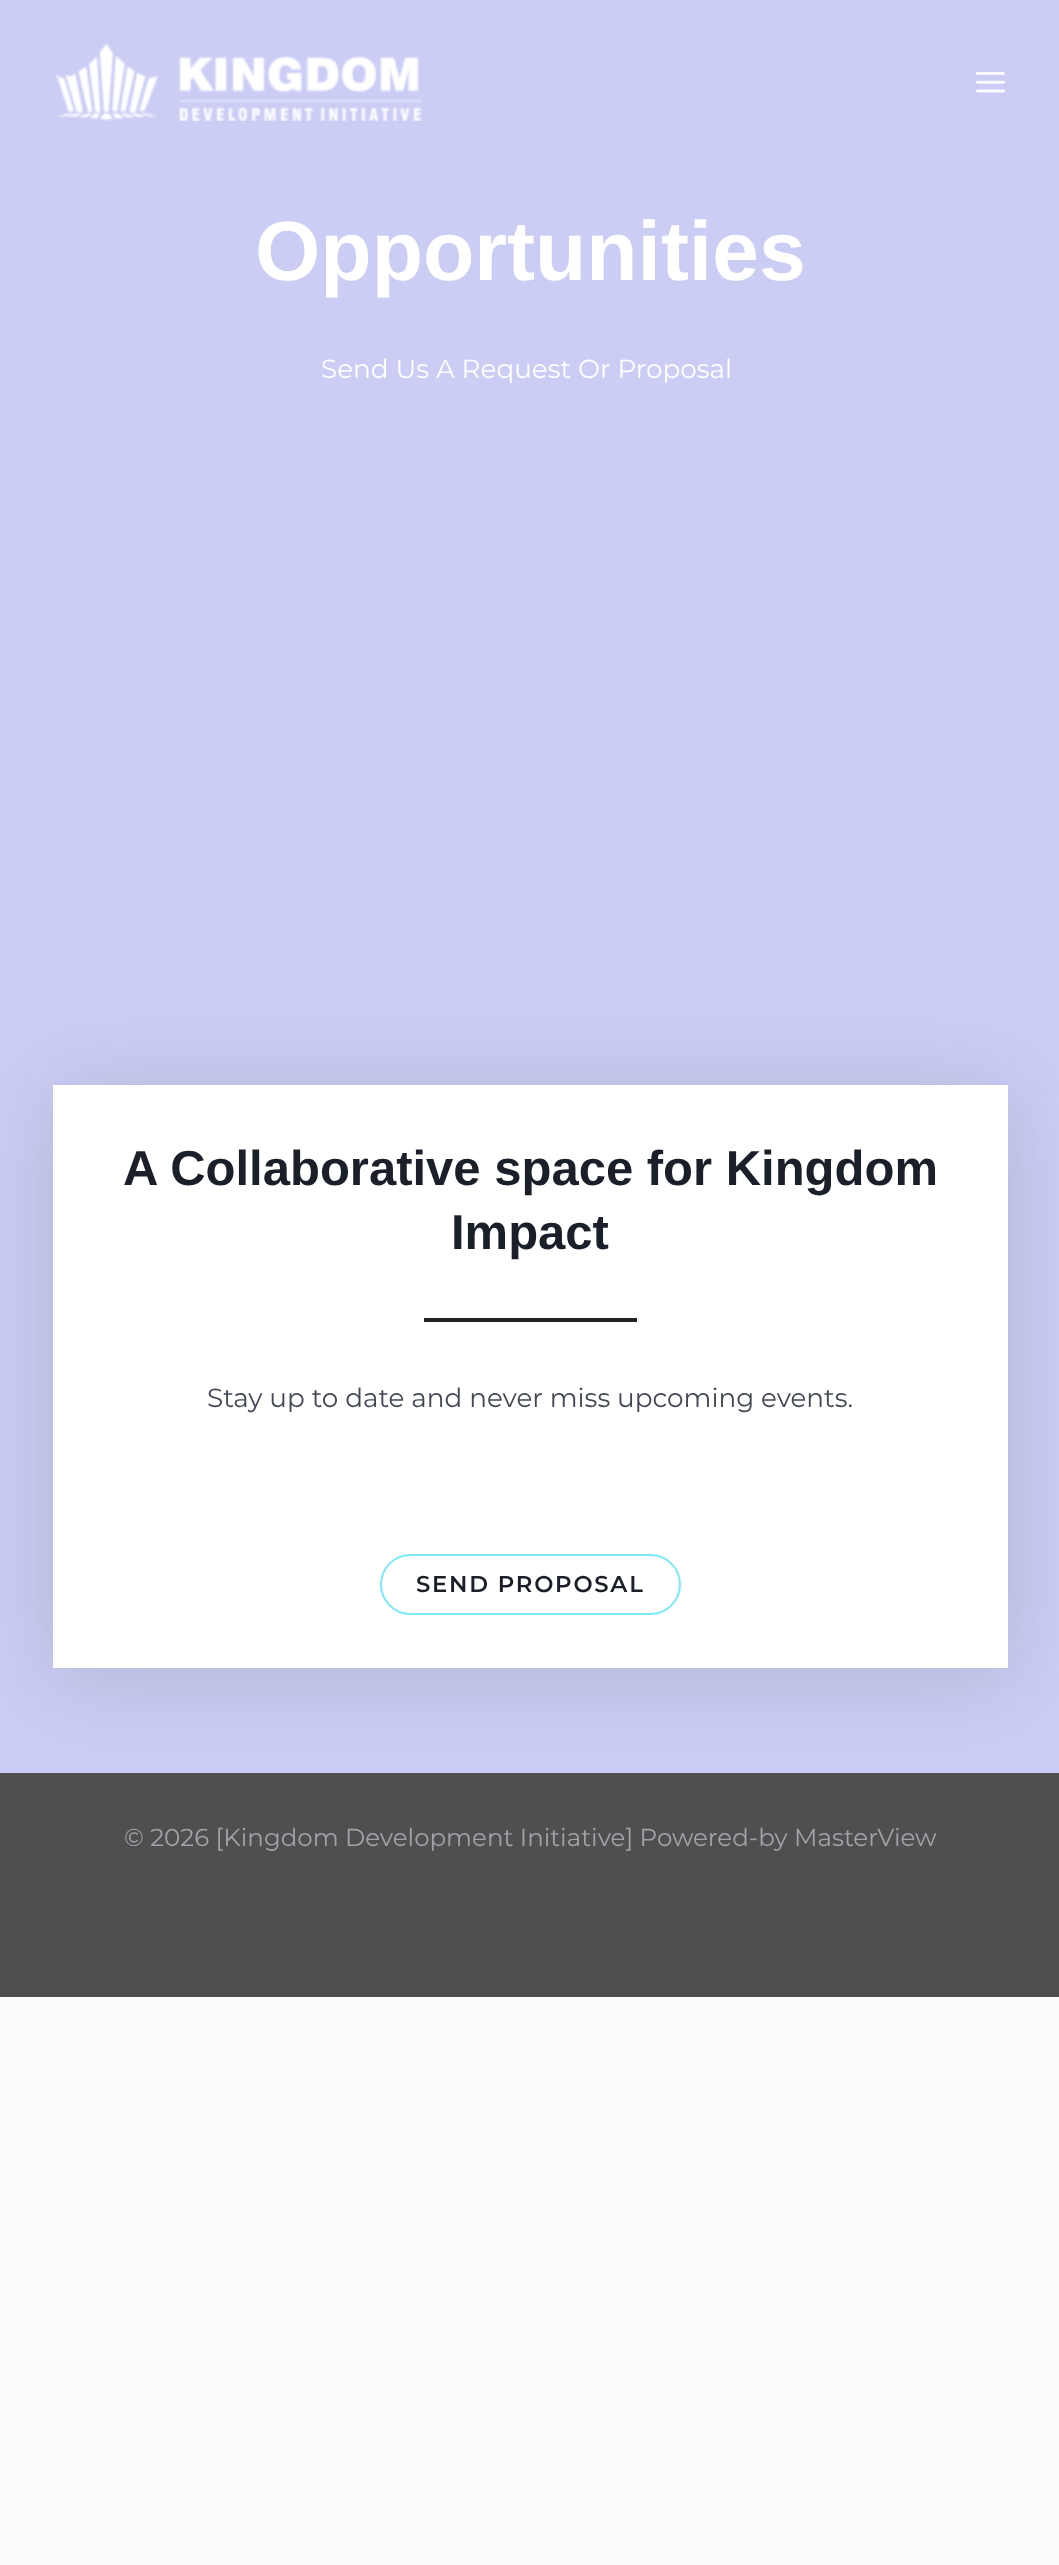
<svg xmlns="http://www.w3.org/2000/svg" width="1059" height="2565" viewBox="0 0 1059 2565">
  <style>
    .t1 { font: bold 84px Liberation Sans; fill: #fff; }
    .t2 { font: 26.25px Montserrat; fill: #fff; }
    .t3 { font: bold 49px Liberation Sans; fill: #1b1f29; }
    .t4 { font: 26.25px Montserrat; fill: #434856; }
    .t5 { font: 600 22.75px Montserrat; letter-spacing: 1.75px; fill: #1b1f29; }
    .t6 { font: 24.5px Montserrat; fill: #a2a2aa; }
  </style>
  <rect width="100%" height="100%" fill="#fcfcfc"/>
  <rect x="0" y="0" width="1059" height="1773" fill="#cbcdf5"/>
  <image x="56" y="43" width="366" height="78" href="images/1.png"/>
  <image x="976" y="72" width="29" height="21" href="images/2.png"/>
  <text x="255" y="280" class="t1">Opportunities</text>
  <text x="321" y="378" class="t2">Send Us A Request Or Proposal</text>
  <rect x="0" y="1773" width="1059" height="224" fill="#504e4e"/>
  <rect x="53" y="1094" width="955" height="583" fill="#21212126" filter="blur(44px)"/>
  <rect x="53" y="1085" width="955" height="583" fill="#fff"/>
  <text x="123" y="1185" class="t3">A Collaborative space for Kingdom</text>
  <text x="451" y="1249" class="t3">Impact</text>
  <rect x="424" y="1318" width="213" height="4" fill="#212121"/>
  <text x="207" y="1407" class="t4">Stay up to date and never miss upcoming events.</text>
  <rect x="381" y="1555" width="299" height="59" rx="29.5" fill="none" stroke="#79eaf7" stroke-width="2"/>
  <text x="416" y="1592" class="t5">SEND PROPOSAL</text>
  <text x="124" y="1846" class="t6">© 2026 [Kingdom Development Initiative] Powered-by MasterView</text>
</svg>
